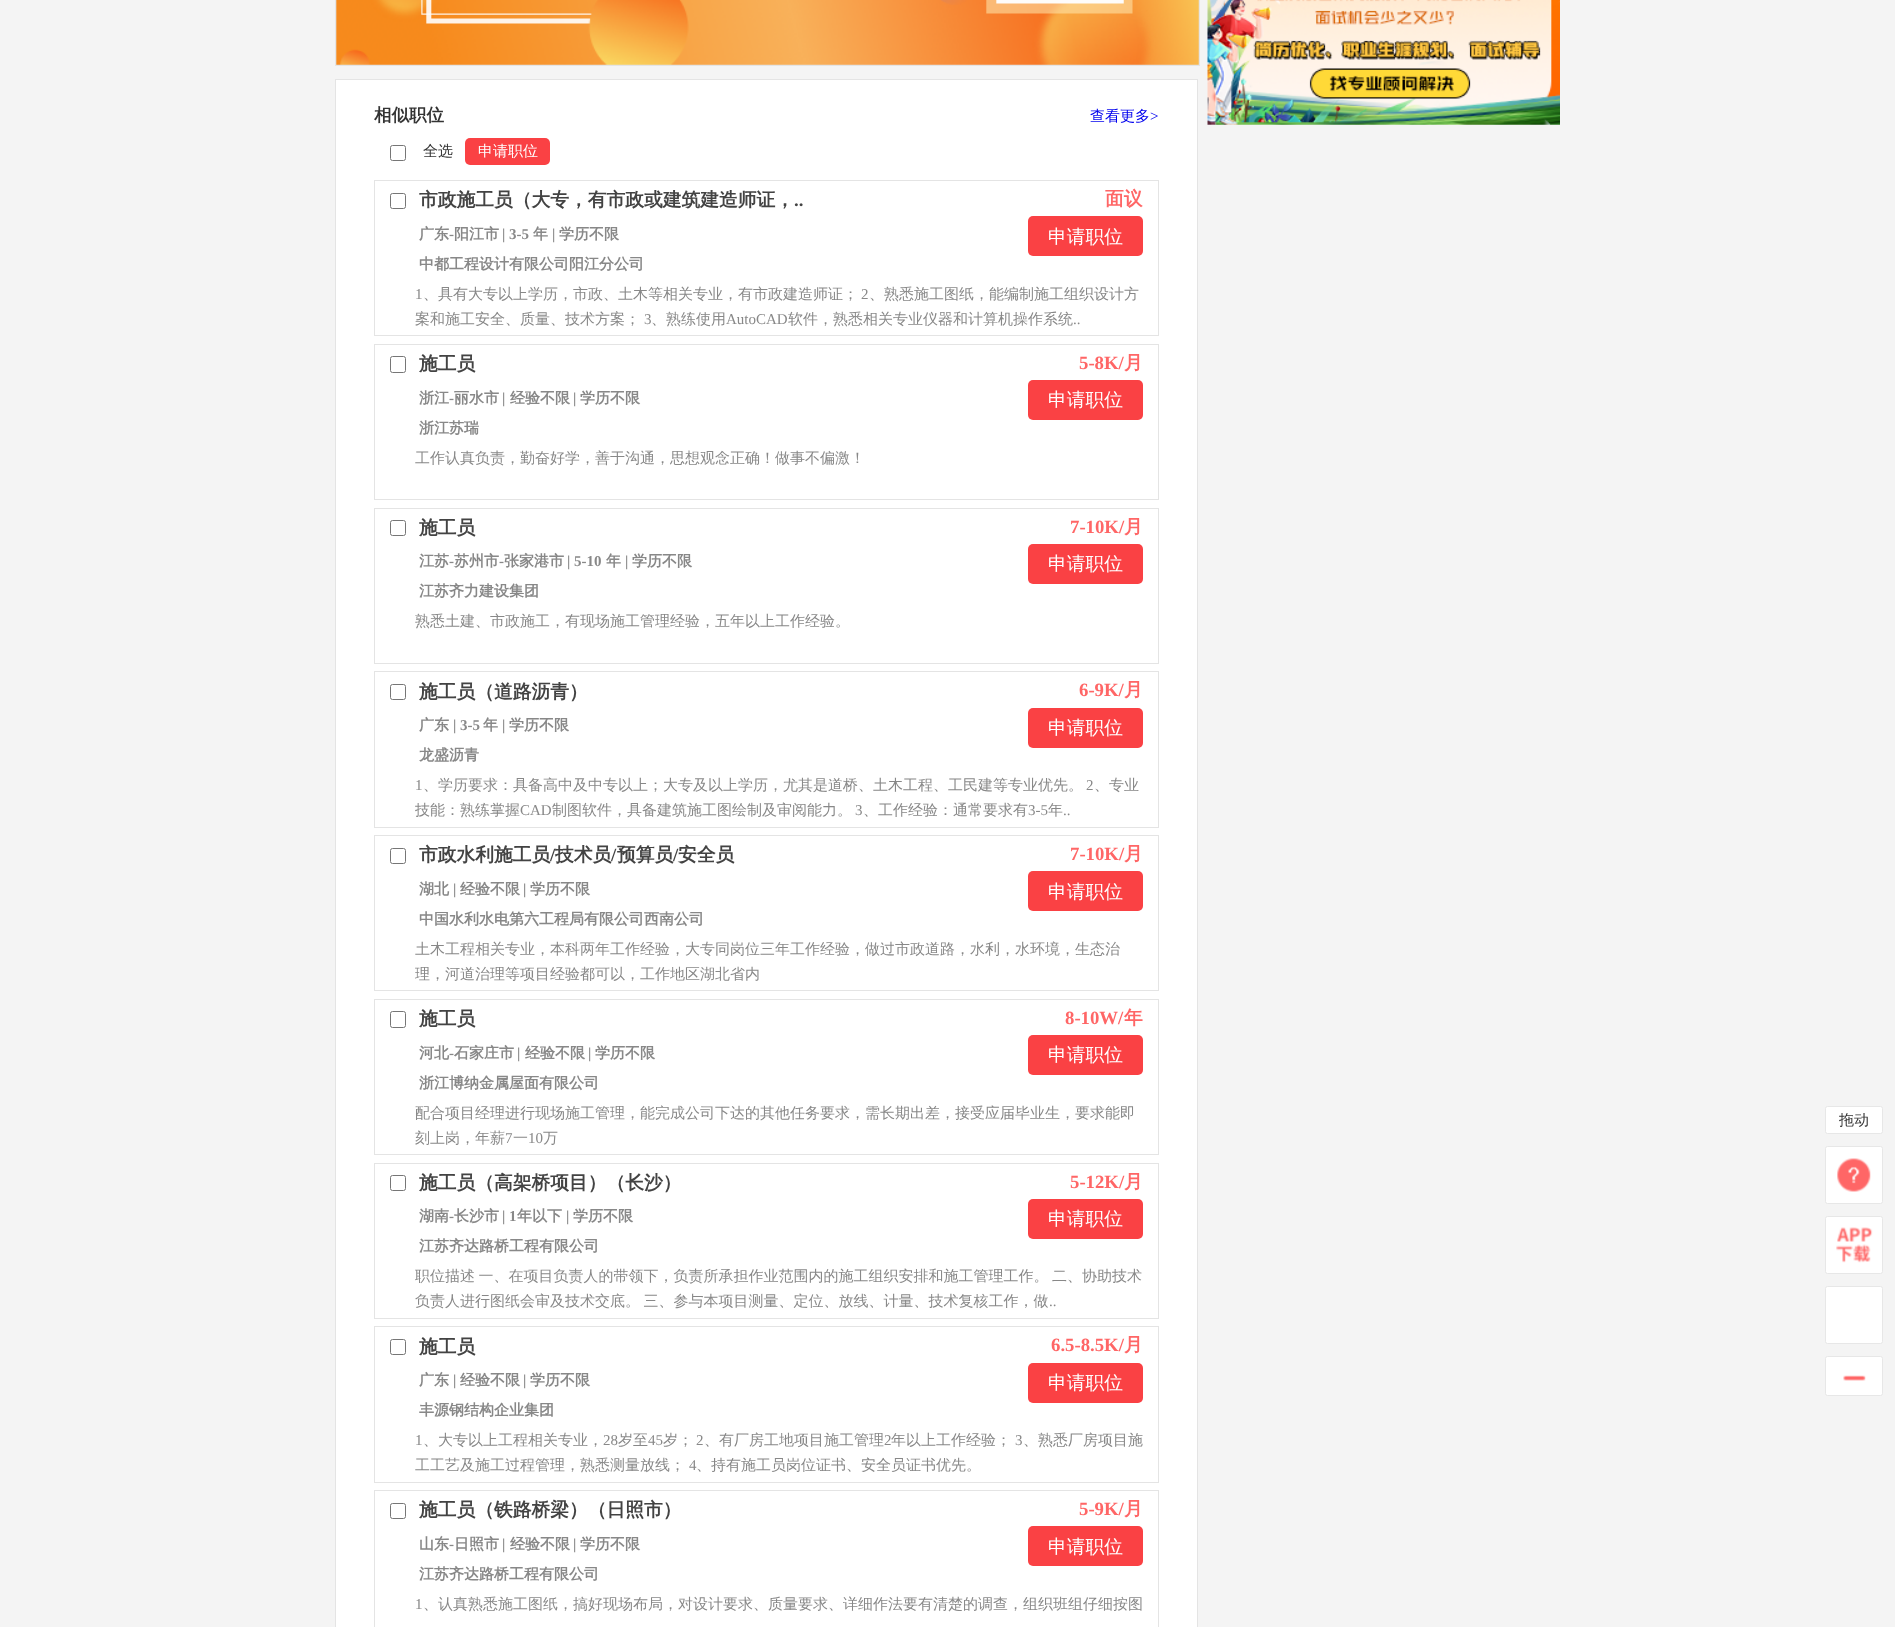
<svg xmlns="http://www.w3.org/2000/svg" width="1895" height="1627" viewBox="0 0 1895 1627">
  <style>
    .t1 { font: bold 17.5px WenQuanYi Zen Hei; fill: #333; }
    .t2 { font: 500 15px WenQuanYi Zen Hei; fill: #00e; }
    .t3 { font: 15px Liberation Serif; fill: #00e; }
    .t4 { font: 500 15px WenQuanYi Zen Hei; fill: #333; }
    .t5 { font: 500 15px WenQuanYi Zen Hei; fill: #fff; }
    .t6 { font: bold 18.75px WenQuanYi Zen Hei; fill: #434343; }
    .t7 { font: bold 18.75px Liberation Serif; fill: #434343; }
    .t8 { font: bold 15px WenQuanYi Zen Hei; fill: #888; }
    .t9 { font: bold 15px Liberation Serif; fill: #888; }
    .t10 { font: bold 18.75px WenQuanYi Zen Hei; fill: #f66; }
    .t11 { font: 500 18.75px WenQuanYi Zen Hei; fill: #fff; }
    .t12 { font: 15px Liberation Serif; fill: #888; }
    .t13 { font: 500 15px WenQuanYi Zen Hei; fill: #888; }
    .t14 { font: bold 18.75px Liberation Serif; fill: #f66; }
  </style>
  <rect width="100%" height="100%" fill="#f4f4f4"/>
  <image x="1207" y="0" width="353" height="125" href="images/1.png"/>
  <image x="335" y="0" width="865" height="66" href="images/2.png"/>
  <rect x="335.5" y="79.5" width="862" height="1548" fill="#fff" stroke="#e4e4e4"/>
  <text x="374" y="121" class="t1">相似职位</text>
  <text x="1090" y="121" class="t2">查看更多</text>
  <text x="1150" y="121" class="t3">&gt;</text>
  <rect x="390.5" y="145.5" width="15" height="15" rx="2" fill="none" stroke="#767676"/>
  <text x="423" y="156" class="t4">全选</text>
  <rect x="465" y="138" width="85" height="27" rx="5" fill="#fa4144"/>
  <text x="478" y="156" class="t5">申请职位</text>
  <rect x="374.5" y="180.5" width="784" height="155" fill="none" stroke="#e4e4e4"/>
  <rect x="390.5" y="193.5" width="15" height="15" rx="2" fill="none" stroke="#767676"/>
  <text x="419" y="206" class="t6">市政施工员（大专，有市政或建筑建造师证，</text>
  <text x="794" y="206" class="t7">..</text>
  <text x="419" y="239" class="t8">广东</text>
  <text x="449" y="239" class="t9">-</text>
  <text x="454" y="239" class="t8">阳江市</text>
  <text x="502" y="239" class="t9">| 3-5</text>
  <text x="533" y="239" class="t8">年</text>
  <text x="552" y="239" class="t9">|</text>
  <text x="559" y="239" class="t8">学历不限</text>
  <text x="419" y="269" class="t8">中都工程设计有限公司阳江分公司</text>
  <text x="1105" y="205" class="t10">面议</text>
  <rect x="1028" y="216" width="115" height="40" rx="5" fill="#fa4144"/>
  <text x="1048" y="243" class="t11">申请职位</text>
  <text x="415" y="299" class="t12">1</text>
  <text x="423" y="299" class="t13">、具有大专以上学历，市政、土木等相关专业，有市政建造师证；</text>
  <text x="861" y="299" class="t12">2</text>
  <text x="869" y="299" class="t13">、熟悉施工图纸，能编制施工组织设计方</text>
  <text x="415" y="324" class="t13">案和施工安全、质量、技术方案；</text>
  <text x="644" y="324" class="t12">3</text>
  <text x="651" y="324" class="t13">、熟练使用</text>
  <text x="726" y="324" class="t12">AutoCAD</text>
  <text x="788" y="324" class="t13">软件，熟悉相关专业仪器和计算机操作系统</text>
  <text x="1073" y="324" class="t12">..</text>
  <rect x="374.5" y="344.5" width="784" height="155" fill="none" stroke="#e4e4e4"/>
  <rect x="390.5" y="356.5" width="15" height="16" rx="2" fill="none" stroke="#767676"/>
  <text x="419" y="370" class="t6">施工员</text>
  <text x="419" y="403" class="t8">浙江</text>
  <text x="449" y="403" class="t9">-</text>
  <text x="454" y="403" class="t8">丽水市</text>
  <text x="502" y="403" class="t9">|</text>
  <text x="510" y="403" class="t8">经验不限</text>
  <text x="573" y="403" class="t9">|</text>
  <text x="580" y="403" class="t8">学历不限</text>
  <text x="419" y="433" class="t8">浙江苏瑞</text>
  <text x="1079" y="369" class="t14">5-8K/</text>
  <text x="1124" y="369" class="t10">月</text>
  <rect x="1028" y="380" width="115" height="40" rx="5" fill="#fa4144"/>
  <text x="1048" y="406" class="t11">申请职位</text>
  <text x="415" y="463" class="t13">工作认真负责，勤奋好学，善于沟通，思想观念正确！做事不偏激！</text>
  <rect x="374.5" y="508.5" width="784" height="155" fill="none" stroke="#e4e4e4"/>
  <rect x="390.5" y="520.5" width="15" height="15" rx="2" fill="none" stroke="#767676"/>
  <text x="419" y="534" class="t6">施工员</text>
  <text x="419" y="566" class="t8">江苏</text>
  <text x="449" y="566" class="t9">-</text>
  <text x="454" y="566" class="t8">苏州市</text>
  <text x="499" y="566" class="t9">-</text>
  <text x="504" y="566" class="t8">张家港市</text>
  <text x="567" y="566" class="t9">| 5-10</text>
  <text x="606" y="566" class="t8">年</text>
  <text x="625" y="566" class="t9">|</text>
  <text x="632" y="566" class="t8">学历不限</text>
  <text x="419" y="596" class="t8">江苏齐力建设集团</text>
  <text x="1070" y="533" class="t14">7-10K/</text>
  <text x="1124" y="533" class="t10">月</text>
  <rect x="1028" y="544" width="115" height="40" rx="5" fill="#fa4144"/>
  <text x="1048" y="570" class="t11">申请职位</text>
  <text x="415" y="626" class="t13">熟悉土建、市政施工，有现场施工管理经验，五年以上工作经验。</text>
  <rect x="374.5" y="671.5" width="784" height="156" fill="none" stroke="#e4e4e4"/>
  <rect x="390.5" y="684.5" width="15" height="15" rx="2" fill="none" stroke="#767676"/>
  <text x="419" y="698" class="t6">施工员（道路沥青）</text>
  <text x="419" y="730" class="t8">广东</text>
  <text x="453" y="730" class="t9">| 3-5</text>
  <text x="483" y="730" class="t8">年</text>
  <text x="502" y="730" class="t9">|</text>
  <text x="509" y="730" class="t8">学历不限</text>
  <text x="419" y="760" class="t8">龙盛沥青</text>
  <text x="1079" y="696" class="t14">6-9K/</text>
  <text x="1124" y="696" class="t10">月</text>
  <rect x="1028" y="708" width="115" height="40" rx="5" fill="#fa4144"/>
  <text x="1048" y="734" class="t11">申请职位</text>
  <text x="415" y="790" class="t12">1</text>
  <text x="423" y="790" class="t13">、学历要求：具备高中及中专以上；大专及以上学历，尤其是道桥、土木工程、工民建等专业优先。</text>
  <text x="1086" y="790" class="t12">2</text>
  <text x="1094" y="790" class="t13">、专业</text>
  <text x="415" y="815" class="t13">技能：熟练掌握</text>
  <text x="520" y="815" class="t12">CAD</text>
  <text x="552" y="815" class="t13">制图软件，具备建筑施工图绘制及审阅能力。</text>
  <text x="855" y="815" class="t12">3</text>
  <text x="863" y="815" class="t13">、工作经验：通常要求有</text>
  <text x="1028" y="815" class="t12">3-5</text>
  <text x="1048" y="815" class="t13">年</text>
  <text x="1063" y="815" class="t12">..</text>
  <rect x="374.5" y="835.5" width="784" height="155" fill="none" stroke="#e4e4e4"/>
  <rect x="390.5" y="848.5" width="15" height="15" rx="2" fill="none" stroke="#767676"/>
  <text x="419" y="861" class="t6">市政水利施工员</text>
  <text x="550" y="861" class="t7">/</text>
  <text x="555" y="861" class="t6">技术员</text>
  <text x="611" y="861" class="t7">/</text>
  <text x="617" y="861" class="t6">预算员</text>
  <text x="673" y="861" class="t7">/</text>
  <text x="678" y="861" class="t6">安全员</text>
  <text x="419" y="894" class="t8">湖北</text>
  <text x="453" y="894" class="t9">|</text>
  <text x="460" y="894" class="t8">经验不限</text>
  <text x="523" y="894" class="t9">|</text>
  <text x="530" y="894" class="t8">学历不限</text>
  <text x="419" y="924" class="t8">中国水利水电第六工程局有限公司西南公司</text>
  <text x="1070" y="860" class="t14">7-10K/</text>
  <text x="1124" y="860" class="t10">月</text>
  <rect x="1028" y="871" width="115" height="40" rx="5" fill="#fa4144"/>
  <text x="1048" y="898" class="t11">申请职位</text>
  <text x="415" y="954" class="t13">土木工程相关专业，本科两年工作经验，大专同岗位三年工作经验，做过市政道路，水利，水环境，生态治</text>
  <text x="415" y="979" class="t13">理，河道治理等项目经验都可以，工作地区湖北省内</text>
  <rect x="374.5" y="999.5" width="784" height="155" fill="none" stroke="#e4e4e4"/>
  <rect x="390.5" y="1011.5" width="15" height="16" rx="2" fill="none" stroke="#767676"/>
  <text x="419" y="1025" class="t6">施工员</text>
  <text x="419" y="1058" class="t8">河北</text>
  <text x="449" y="1058" class="t9">-</text>
  <text x="454" y="1058" class="t8">石家庄市</text>
  <text x="517" y="1058" class="t9">|</text>
  <text x="525" y="1058" class="t8">经验不限</text>
  <text x="588" y="1058" class="t9">|</text>
  <text x="595" y="1058" class="t8">学历不限</text>
  <text x="419" y="1088" class="t8">浙江博纳金属屋面有限公司</text>
  <text x="1065" y="1024" class="t14">8-10W/</text>
  <text x="1124" y="1024" class="t10">年</text>
  <rect x="1028" y="1035" width="115" height="40" rx="5" fill="#fa4144"/>
  <text x="1048" y="1061" class="t11">申请职位</text>
  <text x="415" y="1118" class="t13">配合项目经理进行现场施工管理，能完成公司下达的其他任务要求，需长期出差，接受应届毕业生，要求能即</text>
  <text x="415" y="1143" class="t13">刻上岗，年薪</text>
  <text x="505" y="1143" class="t12">7</text>
  <text x="513" y="1143" class="t13">一</text>
  <text x="528" y="1143" class="t12">10</text>
  <text x="543" y="1143" class="t13">万</text>
  <rect x="374.5" y="1163.5" width="784" height="155" fill="none" stroke="#e4e4e4"/>
  <rect x="390.5" y="1175.5" width="15" height="15" rx="2" fill="none" stroke="#767676"/>
  <text x="419" y="1189" class="t6">施工员（高架桥项目）（长沙）</text>
  <text x="419" y="1221" class="t8">湖南</text>
  <text x="449" y="1221" class="t9">-</text>
  <text x="454" y="1221" class="t8">长沙市</text>
  <text x="502" y="1221" class="t9">| 1</text>
  <text x="517" y="1221" class="t8">年以下</text>
  <text x="566" y="1221" class="t9">|</text>
  <text x="573" y="1221" class="t8">学历不限</text>
  <text x="419" y="1251" class="t8">江苏齐达路桥工程有限公司</text>
  <text x="1070" y="1188" class="t14">5-12K/</text>
  <text x="1124" y="1188" class="t10">月</text>
  <rect x="1028" y="1199" width="115" height="40" rx="5" fill="#fa4144"/>
  <text x="1048" y="1225" class="t11">申请职位</text>
  <text x="415" y="1281" word-spacing="-1" class="t13">职位描述 一、在项目负责人的带领下，负责所承担作业范围内的施工组织安排和施工管理工作。 二、协助技术</text>
  <text x="415" y="1306" word-spacing="-1" class="t13">负责人进行图纸会审及技术交底。 三、参与本项目测量、定位、放线、计量、技术复核工作，做</text>
  <text x="1049" y="1306" class="t12">..</text>
  <rect x="374.5" y="1326.5" width="784" height="156" fill="none" stroke="#e4e4e4"/>
  <rect x="390.5" y="1339.5" width="15" height="15" rx="2" fill="none" stroke="#767676"/>
  <text x="419" y="1353" class="t6">施工员</text>
  <text x="419" y="1385" class="t8">广东</text>
  <text x="453" y="1385" class="t9">|</text>
  <text x="460" y="1385" class="t8">经验不限</text>
  <text x="523" y="1385" class="t9">|</text>
  <text x="530" y="1385" class="t8">学历不限</text>
  <text x="419" y="1415" class="t8">丰源钢结构企业集团</text>
  <text x="1051" y="1351" class="t14">6.5-8.5K/</text>
  <text x="1124" y="1351" class="t10">月</text>
  <rect x="1028" y="1363" width="115" height="40" rx="5" fill="#fa4144"/>
  <text x="1048" y="1389" class="t11">申请职位</text>
  <text x="415" y="1445" class="t12">1</text>
  <text x="423" y="1445" class="t13">、大专以上工程相关专业，</text>
  <text x="603" y="1445" class="t12">28</text>
  <text x="618" y="1445" class="t13">岁至</text>
  <text x="648" y="1445" class="t12">45</text>
  <text x="663" y="1445" class="t13">岁；</text>
  <text x="696" y="1445" class="t12">2</text>
  <text x="704" y="1445" class="t13">、有厂房工地项目施工管理</text>
  <text x="884" y="1445" class="t12">2</text>
  <text x="891" y="1445" class="t13">年以上工作经验；</text>
  <text x="1015" y="1445" class="t12">3</text>
  <text x="1023" y="1445" class="t13">、熟悉厂房项目施</text>
  <text x="415" y="1470" class="t13">工工艺及施工过程管理，熟悉测量放线；</text>
  <text x="689" y="1470" class="t12">4</text>
  <text x="696" y="1470" class="t13">、持有施工员岗位证书、安全员证书优先。</text>
  <rect x="374.5" y="1490.5" width="784" height="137" fill="none" stroke="#e4e4e4"/>
  <rect x="390.5" y="1503.5" width="15" height="15" rx="2" fill="none" stroke="#767676"/>
  <text x="419" y="1516" class="t6">施工员（铁路桥梁）（日照市）</text>
  <text x="419" y="1549" class="t8">山东</text>
  <text x="449" y="1549" class="t9">-</text>
  <text x="454" y="1549" class="t8">日照市</text>
  <text x="502" y="1549" class="t9">|</text>
  <text x="510" y="1549" class="t8">经验不限</text>
  <text x="573" y="1549" class="t9">|</text>
  <text x="580" y="1549" class="t8">学历不限</text>
  <text x="419" y="1579" class="t8">江苏齐达路桥工程有限公司</text>
  <text x="1079" y="1515" class="t14">5-9K/</text>
  <text x="1124" y="1515" class="t10">月</text>
  <rect x="1028" y="1526" width="115" height="40" rx="5" fill="#fa4144"/>
  <text x="1048" y="1553" class="t11">申请职位</text>
  <text x="415" y="1609" class="t12">1</text>
  <text x="423" y="1609" class="t13">、认真熟悉施工图纸，搞好现场布局，对设计要求、质量要求、详细作法要有清楚的调查，组织班组仔细按图</text>
  <rect x="1825.5" y="1106.5" width="57" height="27" rx="2" fill="#fff" stroke="#e7e7e7"/>
  <text x="1839" y="1125" class="t4">拖动</text>
  <rect x="1825.5" y="1146.5" width="57" height="57" rx="2" fill="#fff" stroke="#e7e7e7"/>
  <image x="1837" y="1158" width="34" height="34" href="images/3.png"/>
  <rect x="1825.5" y="1216.5" width="57" height="57" rx="2" fill="#fff" stroke="#e7e7e7"/>
  <image x="1836" y="1227" width="37" height="36" href="images/4.png"/>
  <rect x="1825.5" y="1286.5" width="57" height="57" rx="2" fill="#fff" stroke="#e7e7e7"/>
  <rect x="1825.5" y="1356.5" width="57" height="39" rx="2" fill="#fff" stroke="#e7e7e7"/>
  <image x="1843" y="1375" width="23" height="6" href="images/5.png"/>
</svg>
